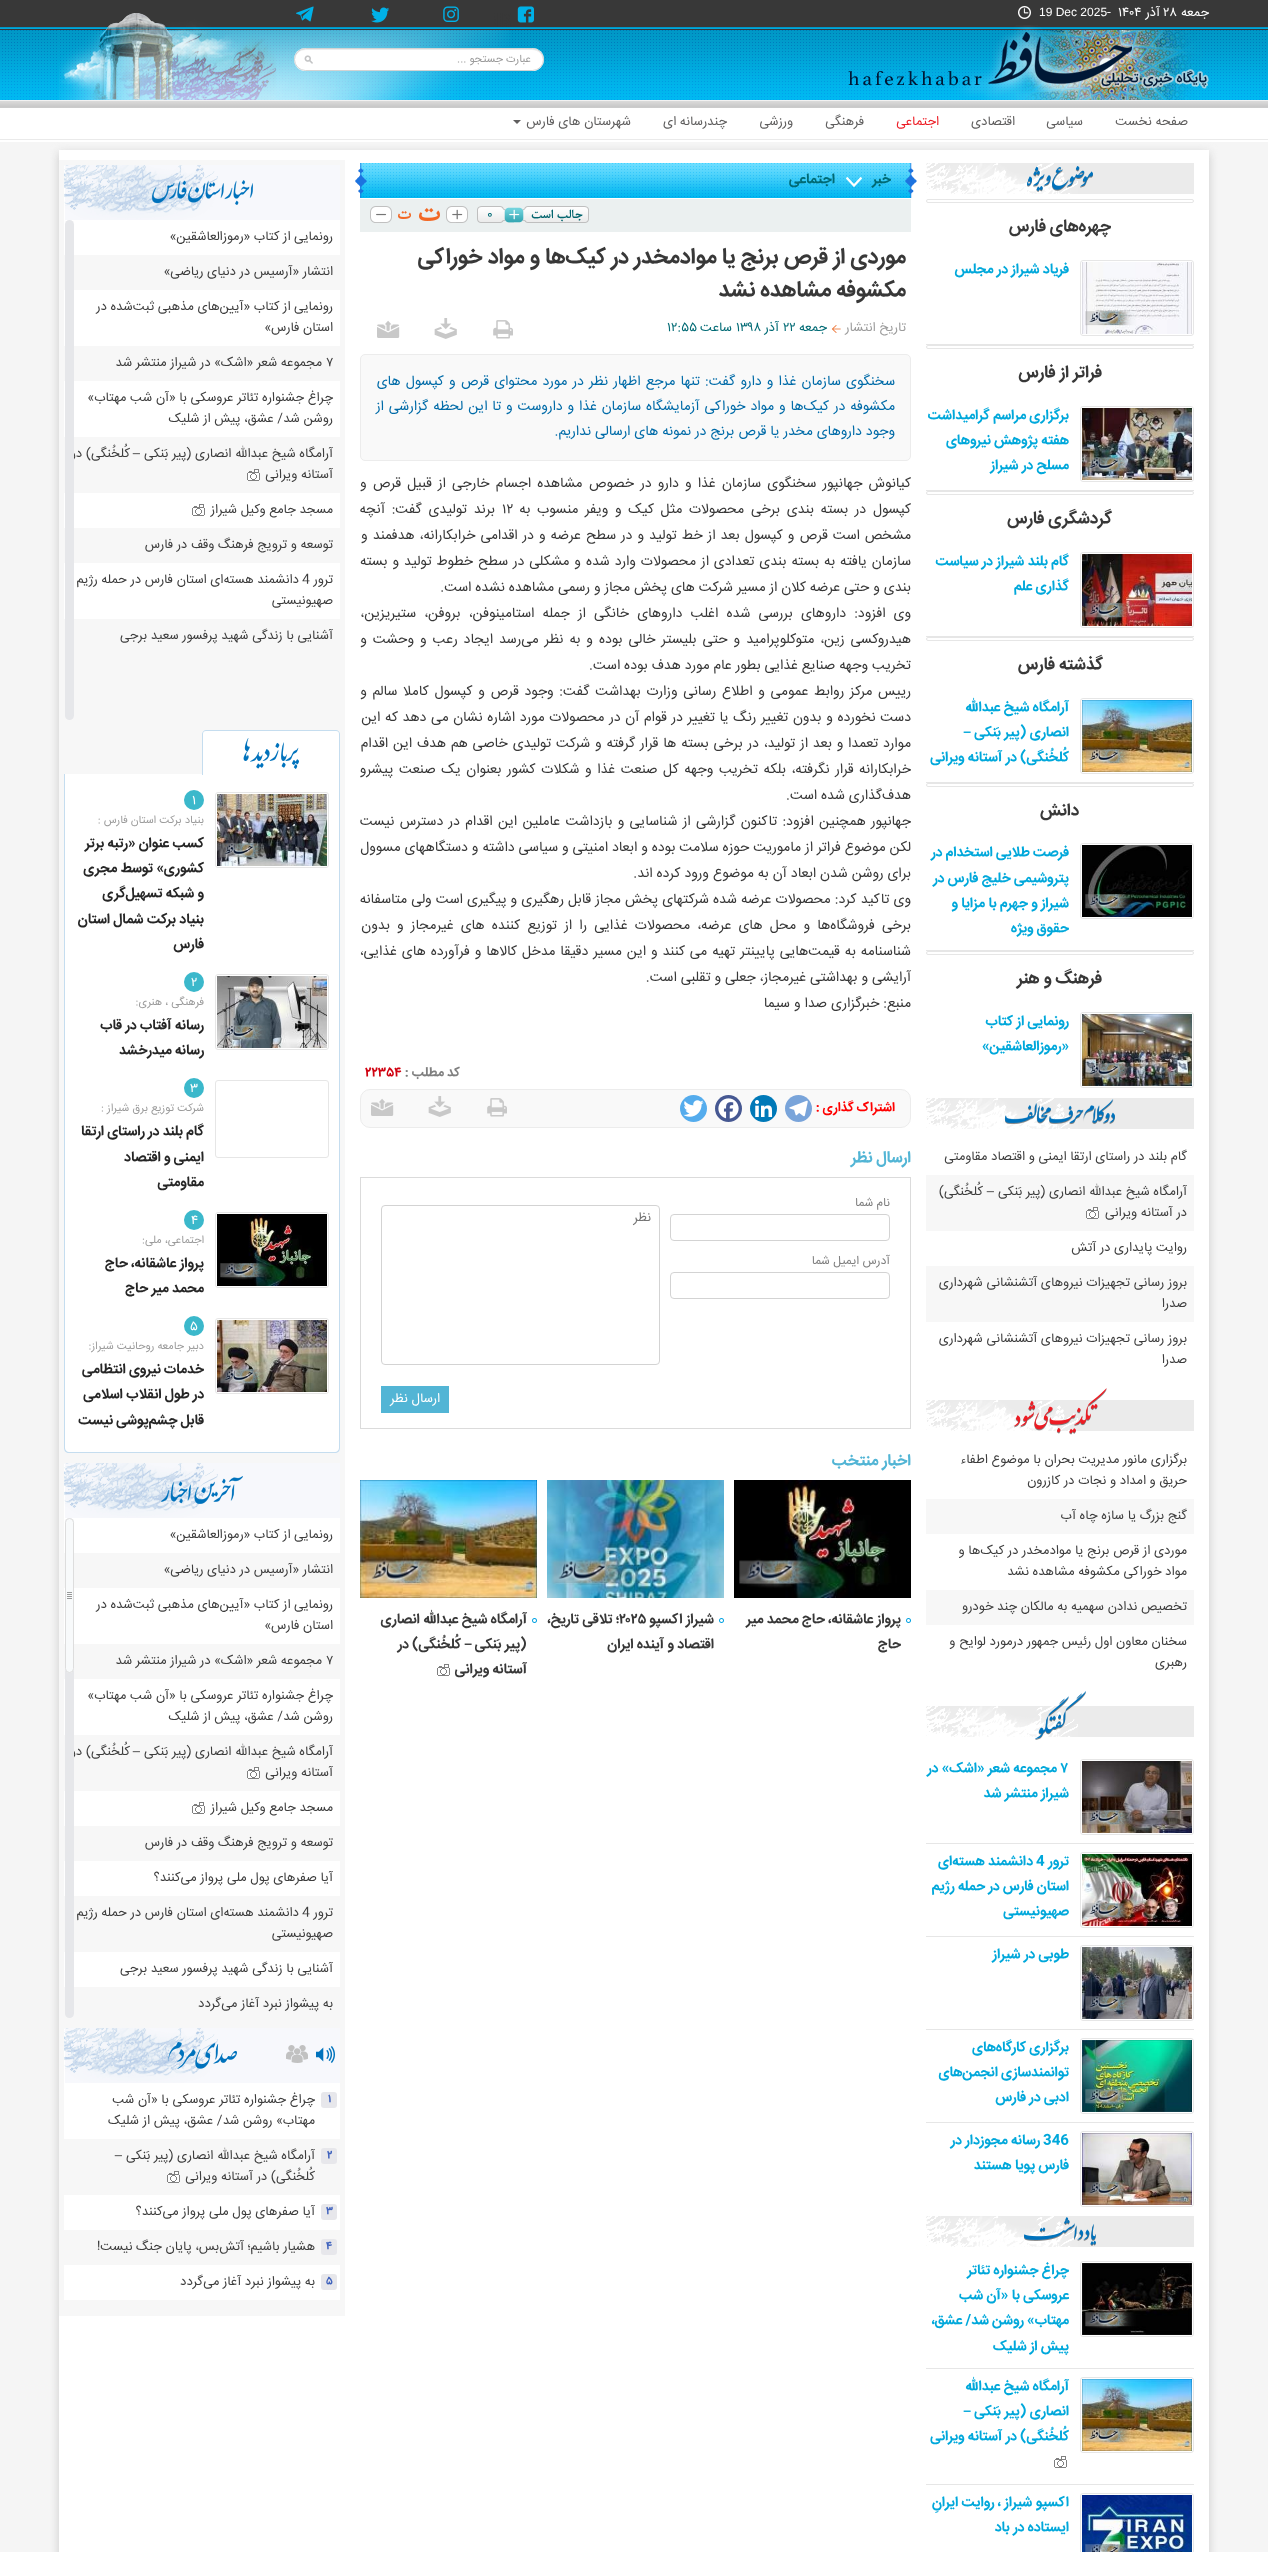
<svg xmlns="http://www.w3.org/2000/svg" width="1268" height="2552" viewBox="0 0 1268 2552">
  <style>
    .t1 { font: 13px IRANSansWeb; direction: rtl; fill: #fff; }
    .t2 { font: 13px IRANSansWeb; fill: #fff; }
    .t3 { font: 12px Liberation Sans; fill: #fff; }
    .t4 { font: 11px IRANSansWeb; direction: rtl; fill: #9c9c9c; }
    .t5 { font: 13px IRANSansWeb; direction: rtl; fill: #5f5e5e; }
    .t6 { font: 13px IRANSansWeb; direction: rtl; fill: #ed1c24; }
    .t7 { font: bold 17px IRANSansWeb; direction: rtl; fill: #383838; }
    .t8 { font: bold 14px IRANSansWeb; direction: rtl; fill: #00a8db; }
    .t9 { font: bold 14px Liberation Sans; direction: rtl; fill: #00a8db; }
    .t10 { font: 13px IRANSansWeb; direction: rtl; fill: #3e3e3e; }
    .t11 { font: 13px Liberation Sans; direction: rtl; fill: #3e3e3e; }
    .t12 { font: bold 14px IRANSansWeb; fill: #00a8db; }
    .t13 { font: bold 14px IRANSansWeb; direction: rtl; fill: #016a74; }
    .t14 { font: 13px IRANSansWeb; fill: #016a74; }
    .t15 { font: bold 22px IRANSansWeb; direction: rtl; fill: #383838; }
    .t16 { font: 13px IRANSansWeb; direction: rtl; fill: #9c9c9c; }
    .t17 { font: 13px IRANSansWeb; direction: rtl; fill: #016a74; }
    .t18 { font: 14px IRANSansWeb; direction: rtl; fill: #006ba8; }
    .t19 { font: 14px IRANSansWeb; direction: rtl; fill: #383838; }
    .t20 { font: 14px IRANSansWeb; fill: #383838; }
    .t21 { font: bold 13px IRANSansWeb; direction: rtl; fill: #7f7f7f; }
    .t22 { font: bold 13px IRANSansWeb; fill: #d00210; }
    .t23 { font: bold 13px IRANSansWeb; direction: rtl; fill: #f00; }
    .t24 { font: bold 16px IRANSansWeb; direction: rtl; fill: #52b5d5; }
    .t25 { font: 12px IRANSansWeb; direction: rtl; fill: #7f7f7f; }
    .t26 { font: 13px IRANSansWeb; direction: rtl; fill: #757575; }
    .t27 { font: bold 14px IRANSansWeb; direction: rtl; fill: #383838; }
    .t28 { font: bold 14px IRANSansWeb; fill: #383838; }
    .t29 { font: bold 14px Liberation Sans; direction: rtl; fill: #383838; }
    .t30 { font: 13px IRANSansWeb; fill: #3e3e3e; }
    .t31 { font: bold 14px IRANSansWeb; direction: rtl; fill: #262626; }
    .t32 { font: bold 11px IRANSansWeb; fill: #3f62bd; }
  </style>
  <rect width="100%" height="100%" fill="#f5f5f5"/>
  <image x="0" y="0" width="1268" height="142" href="images/1.png"/>
  <image x="1018" y="6" width="13" height="13" href="images/2.png"/>
  <text x="1209" y="16" class="t1">جمعه</text>
  <text x="1163" y="16" class="t2">۲۸</text>
  <text x="1160" y="16" class="t1">آذر</text>
  <text x="1118" y="16" class="t2">۱۴۰۴</text>
  <text x="1107" y="16" class="t2">-</text>
  <text x="1039" y="16" class="t3">19 Dec 2025</text>
  <image x="517" y="6" width="17" height="17" href="images/3.png"/>
  <image x="59" y="13" width="452" height="87" href="images/8.png"/>
  <image x="443" y="6" width="16" height="16" href="images/4.png"/>
  <image x="371" y="7" width="19" height="16" href="images/5.png"/>
  <image x="296" y="6" width="18" height="16" href="images/6.png"/>
  <image x="848" y="25" width="361" height="75" href="images/7.png"/>
  <rect x="294" y="48" width="250" height="23" rx="11.5" fill="#fff"/>
  <path d="M306 50H532C541 50 544 58 542 64C545 57 540 49 532 49H303C300 50 297 52 296 55L295 60C295 55 299 50 306 50Z" fill="#ececec"/>
  <rect x="294.5" y="48.5" width="249" height="22" rx="11" fill="none" stroke="#bebebead"/>
  <text x="531" y="62" class="t4">عبارت جستجو ...</text>
  <image x="304" y="55" width="9" height="9" href="images/9.png"/>
  <text x="1188" y="125" class="t5">صفحه نخست</text>
  <text x="1083" y="125" class="t5">سیاسی</text>
  <text x="1015" y="125" class="t5">اقتصادی</text>
  <text x="939" y="125" class="t6">اجتماعی</text>
  <text x="864" y="125" class="t5">فرهنگی</text>
  <text x="793" y="125" class="t5">ورزشی</text>
  <text x="727" y="125" class="t5">چندرسانه ای</text>
  <text x="631" y="125" class="t5">شهرستان های فارس</text>
  <path d="M513 120H521L517 124Z" fill="#5f5e5e"/>
  <rect x="59" y="153" width="1150" height="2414" fill="#cacaca" filter="blur(5px)"/>
  <rect x="59" y="150" width="1150" height="2402" fill="#fff"/>
  <rect x="1078" y="163" width="116" height="31" fill="#ebebeb"/>
  <image x="926" y="163" width="152" height="31" href="images/10.png"/>
  <image x="1027" y="166" width="66" height="26" href="images/11.png"/>
  <rect x="926.5" y="199.5" width="267" height="3" rx="1.5" fill="none" stroke="#e6e6e6"/>
  <text x="1111" y="231" class="t7">چهره‌های فارس</text>
  <rect x="926" y="344" width="268" height="1" fill="#e6e6e6"/>
  <rect x="1080.5" y="260.5" width="113" height="75" rx="2.5" fill="none" stroke="#e6e6e6"/>
  <image x="1082" y="262" width="110" height="72" href="images/12.png"/>
  <text x="1069" y="273" class="t8">فریاد شیراز در مجلس</text>
  <rect x="926.5" y="345.5" width="267" height="3" rx="1.5" fill="none" stroke="#e6e6e6"/>
  <text x="1102" y="377" class="t7">فراتر از فارس</text>
  <rect x="926" y="490" width="268" height="1" fill="#e6e6e6"/>
  <rect x="1080.5" y="406.5" width="113" height="75" rx="2.5" fill="none" stroke="#e6e6e6"/>
  <image x="1082" y="408" width="110" height="72" href="images/13.png"/>
  <text x="1069" y="419" class="t8">برگزاری مراسم گرامیداشت</text>
  <text x="1069" y="444" class="t8">هفته پژوهش نیروهای</text>
  <text x="1069" y="469" class="t8">مسلح در شیراز</text>
  <rect x="926.5" y="491.5" width="267" height="3" rx="1.5" fill="none" stroke="#e6e6e6"/>
  <text x="1112" y="523" class="t7">گردشگری فارس</text>
  <rect x="926" y="636" width="268" height="1" fill="#e6e6e6"/>
  <rect x="1080.5" y="552.5" width="113" height="75" rx="2.5" fill="none" stroke="#e6e6e6"/>
  <image x="1082" y="554" width="110" height="72" href="images/14.png"/>
  <text x="1069" y="565" class="t8">گام بلند شیراز در سیاست</text>
  <text x="1069" y="590" class="t8">گذاری علم</text>
  <rect x="926.5" y="637.5" width="267" height="3" rx="1.5" fill="none" stroke="#e6e6e6"/>
  <text x="1103" y="669" class="t7">گذشته فارس</text>
  <rect x="926" y="782" width="268" height="1" fill="#e6e6e6"/>
  <rect x="1080.5" y="698.5" width="113" height="75" rx="2.5" fill="none" stroke="#e6e6e6"/>
  <image x="1082" y="700" width="110" height="72" href="images/15.png"/>
  <text x="1069" y="711" class="t8">آرامگاه شیخ عبدالله</text>
  <text x="1069" y="736" class="t8">انصاری (پیر بَنکی</text>
  <text x="971" y="736" class="t9">–</text>
  <text x="1069" y="761" class="t8">کُلخُنگی) در آستانه ویرانی</text>
  <rect x="926.5" y="783.5" width="267" height="3" rx="1.5" fill="none" stroke="#e6e6e6"/>
  <text x="1079" y="815" class="t7">دانش</text>
  <rect x="926" y="950" width="268" height="1" fill="#e6e6e6"/>
  <rect x="1080.5" y="843.5" width="113" height="75" rx="2.5" fill="none" stroke="#e6e6e6"/>
  <image x="1082" y="845" width="110" height="72" href="images/16.png"/>
  <text x="1069" y="856" class="t8">فرصت طلایی استخدام در</text>
  <text x="1069" y="882" class="t8">پتروشیمی خلیج فارس در</text>
  <text x="1069" y="907" class="t8">شیراز و جهرم با مزایا و</text>
  <text x="1069" y="932" class="t8">حقوق ویژه</text>
  <rect x="926.5" y="951.5" width="267" height="3" rx="1.5" fill="none" stroke="#e6e6e6"/>
  <text x="1102" y="983" class="t7">فرهنگ و هنر</text>
  <rect x="1080.5" y="1012.5" width="113" height="75" rx="2.5" fill="none" stroke="#e6e6e6"/>
  <image x="1082" y="1014" width="110" height="72" href="images/17.png"/>
  <text x="1069" y="1025" class="t8">رونمایی از کتاب</text>
  <text x="1069" y="1050" class="t8">«رموزالعاشقین»</text>
  <rect x="1078" y="1098" width="116" height="31" fill="#ebebeb"/>
  <image x="926" y="1098" width="152" height="31" href="images/10.png"/>
  <image x="1005" y="1099" width="110" height="26" href="images/18.png"/>
  <text x="1187" y="1160" class="t10">گام بلند در راستای ارتقا ایمنی و اقتصاد مقاومتی</text>
  <rect x="926" y="1175" width="268" height="56" fill="#f7f7f7"/>
  <text x="1187" y="1195" class="t10">آرامگاه شیخ عبدالله انصاری (پیر بَنکی</text>
  <text x="994" y="1195" class="t11">–</text>
  <text x="983" y="1195" class="t10">کُلخُنگی)</text>
  <text x="1187" y="1216" class="t10">در آستانه ویرانی</text>
  <image x="1086" y="1207" width="13" height="12" href="images/19.png"/>
  <text x="1187" y="1251" class="t10">روایت پایداری در آتش</text>
  <rect x="926" y="1266" width="268" height="56" fill="#f7f7f7"/>
  <text x="1187" y="1286" class="t10">بروز رسانی تجهیزات نیروهای آتشنشانی شهرداری</text>
  <text x="1187" y="1307" class="t10">صدرا</text>
  <text x="1187" y="1342" class="t10">بروز رسانی تجهیزات نیروهای آتشنشانی شهرداری</text>
  <text x="1187" y="1363" class="t10">صدرا</text>
  <rect x="1078" y="1400" width="116" height="31" fill="#ebebeb"/>
  <image x="926" y="1400" width="152" height="31" href="images/10.png"/>
  <image x="1014" y="1388" width="93" height="47" href="images/20.png"/>
  <text x="1187" y="1463" class="t10">برگزاری مانور مدیریت بحران با موضوع اطفاء</text>
  <text x="1187" y="1484" class="t10">حریق و امداد و نجات در کازرون</text>
  <rect x="926" y="1499" width="268" height="35" fill="#f7f7f7"/>
  <text x="1187" y="1519" class="t10">گنج بزرگ یا سازه چاه آب</text>
  <text x="1187" y="1554" class="t10">موردی از قرص برنج یا موادمخدر در کیک‌ها و</text>
  <text x="1187" y="1575" class="t10">مواد خوراکی مکشوفه مشاهده نشد</text>
  <rect x="926" y="1590" width="268" height="35" fill="#f7f7f7"/>
  <text x="1187" y="1610" class="t10">تخصیص ندادن سهمیه به مالکان چند خودرو</text>
  <text x="1187" y="1645" class="t10">سخنان معاون اول رئیس جمهور درمورد لوایح و</text>
  <text x="1187" y="1666" class="t10">رهبری</text>
  <rect x="1078" y="1706" width="116" height="31" fill="#ebebeb"/>
  <image x="926" y="1706" width="152" height="31" href="images/10.png"/>
  <image x="1035" y="1691" width="51" height="49" href="images/21.png"/>
  <rect x="926" y="1843" width="268" height="1" fill="#e6e6e6"/>
  <rect x="1080.5" y="1759.5" width="113" height="75" rx="2.5" fill="none" stroke="#e6e6e6"/>
  <image x="1082" y="1761" width="110" height="72" href="images/22.png"/>
  <text x="1060" y="1772" class="t12">۷</text>
  <text x="1057" y="1772" class="t8">مجموعه شعر «اشک» در</text>
  <text x="1069" y="1797" class="t8">شیراز منتشر شد</text>
  <rect x="926" y="1936" width="268" height="1" fill="#e6e6e6"/>
  <rect x="1080.5" y="1852.5" width="113" height="75" rx="2.5" fill="none" stroke="#e6e6e6"/>
  <image x="1082" y="1854" width="110" height="72" href="images/23.png"/>
  <text x="1069" y="1865" class="t8">ترور</text>
  <text x="1036" y="1865" class="t12">4</text>
  <text x="1033" y="1865" class="t8">دانشمند هسته‌ای</text>
  <text x="1069" y="1890" class="t8">استان فارس در حمله رژیم</text>
  <text x="1069" y="1915" class="t8">صهیونیستی</text>
  <rect x="926" y="2029" width="268" height="1" fill="#e6e6e6"/>
  <rect x="1080.5" y="1945.5" width="113" height="75" rx="2.5" fill="none" stroke="#e6e6e6"/>
  <image x="1082" y="1947" width="110" height="72" href="images/24.png"/>
  <text x="1069" y="1958" class="t8">طوبی در شیراز</text>
  <rect x="926" y="2122" width="268" height="1" fill="#e6e6e6"/>
  <rect x="1080.5" y="2038.5" width="113" height="75" rx="2.5" fill="none" stroke="#e6e6e6"/>
  <image x="1082" y="2040" width="110" height="72" href="images/25.png"/>
  <text x="1069" y="2051" class="t8">برگزاری کارگاه‌های</text>
  <text x="1069" y="2076" class="t8">توانمندسازی انجمن‌های</text>
  <text x="1069" y="2101" class="t8">ادبی در فارس</text>
  <rect x="1080.5" y="2131.5" width="113" height="75" rx="2.5" fill="none" stroke="#e6e6e6"/>
  <image x="1082" y="2133" width="110" height="72" href="images/26.png"/>
  <text x="1043" y="2144" class="t12">346</text>
  <text x="1040" y="2144" class="t8">رسانه مجوزدار در</text>
  <text x="1069" y="2169" class="t8">فارس پویا هستند</text>
  <rect x="1078" y="2216" width="116" height="31" fill="#ebebeb"/>
  <image x="926" y="2216" width="152" height="31" href="images/10.png"/>
  <image x="1024" y="2217" width="72" height="29" href="images/27.png"/>
  <rect x="926" y="2368" width="268" height="1" fill="#e6e6e6"/>
  <rect x="1080.5" y="2261.5" width="113" height="75" rx="2.5" fill="none" stroke="#e6e6e6"/>
  <image x="1082" y="2263" width="110" height="72" href="images/28.png"/>
  <text x="1069" y="2274" class="t8">چراغ جشنواره‌ تئاتر</text>
  <text x="1069" y="2299" class="t8">عروسکی با «آن شب</text>
  <text x="1069" y="2324" class="t8">مهتاب» روشن شد/ عشق،</text>
  <text x="1069" y="2350" class="t8">پیش از شلیک</text>
  <rect x="926" y="2484" width="268" height="1" fill="#e6e6e6"/>
  <rect x="1080.5" y="2377.5" width="113" height="75" rx="2.5" fill="none" stroke="#e6e6e6"/>
  <image x="1082" y="2379" width="110" height="72" href="images/15.png"/>
  <text x="1069" y="2390" class="t8">آرامگاه شیخ عبدالله</text>
  <text x="1069" y="2415" class="t8">انصاری (پیر بَنکی</text>
  <text x="971" y="2415" class="t9">–</text>
  <text x="1069" y="2440" class="t8">کُلخُنگی) در آستانه ویرانی</text>
  <image x="1054" y="2456" width="13" height="12" href="images/29.png"/>
  <rect x="1080.5" y="2493.5" width="113" height="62" rx="2.5" fill="none" stroke="#e6e6e6"/>
  <image x="1082" y="2495" width="110" height="57" href="images/30.png"/>
  <text x="1069" y="2506" class="t8">اکسپو شیراز ، روایت ایرانِ</text>
  <text x="1069" y="2531" class="t8">ایستاده در باد</text>
  <image x="360" y="163" width="551" height="35" href="images/31.png"/>
  <image x="905" y="163" width="12" height="35" href="images/32.png"/>
  <text x="891" y="183" class="t13">خبر</text>
  <image x="846" y="177" width="16" height="10" href="images/33.png"/>
  <text x="835" y="183" class="t13">اجتماعی</text>
  <image x="355" y="163" width="12" height="35" href="images/34.png"/>
  <rect x="360" y="199" width="551" height="33" fill="#ebf0f0"/>
  <image x="477" y="206" width="112" height="17" href="images/35.png"/>
  <text x="487" y="218" class="t14">۰</text>
  <image x="446" y="206" width="22" height="17" href="images/36.png"/>
  <image x="398" y="208" width="42" height="13" href="images/37.png"/>
  <image x="370" y="206" width="22" height="17" href="images/38.png"/>
  <text x="906" y="263" class="t15">موردی از قرص برنج یا موادمخدر در کیک‌ها و مواد خوراکی</text>
  <text x="906" y="296" class="t15">مکشوفه مشاهده نشد</text>
  <text x="906" y="331" class="t16">تاریخ انتشار</text>
  <image x="831" y="325" width="10" height="8" href="images/39.png"/>
  <text x="827" y="331" class="t17">جمعه</text>
  <text x="783" y="331" class="t14">۲۲</text>
  <text x="779" y="331" class="t17">آذر</text>
  <text x="736" y="331" class="t14">۱۳۹۸</text>
  <text x="732" y="331" class="t17">ساعت</text>
  <text x="667" y="331" class="t14">۱۲:۵۵</text>
  <image x="377" y="318" width="136" height="21" href="images/40.png"/>
  <rect x="360.5" y="354.5" width="550" height="106" rx="4.5" fill="#f9f9f9" stroke="#ececec"/>
  <text x="895" y="385" word-spacing="1.25" class="t18">سخنگوی سازمان غذا و دارو گفت: تنها مرجع اظهار نظر در مورد محتوای قرص و کپسول های</text>
  <text x="895" y="410" word-spacing="1" class="t18">مکشوفه در کیک‌ها و مواد خوراکی آزمایشگاه سازمان غذا و داروست و تا این لحظه گزارشی از</text>
  <text x="895" y="435" class="t18">وجود داروهای مخدر یا قرص برنج در نمونه های ارسالی نداریم.</text>
  <text x="911" y="487" word-spacing="2.25" class="t19">کیانوش جهانپور سخنگوی سازمان غذا و دارو در خصوص مشاهده اجسام خارجی از قبیل قرص و</text>
  <text x="911" y="513" word-spacing="2.75" class="t19">کپسول در بسته بندی برخی محصولات مثل کیک و ویفر منسوب به</text>
  <text x="502" y="513" class="t20">۱۲</text>
  <text x="495" y="513" word-spacing="2.75" class="t19">برند تولیدی گفت: آنچه</text>
  <text x="911" y="539" word-spacing="1.1" class="t19">مشخص است قرص و کپسول بعد از خط تولید و در سطح عرضه و در اقدامی خرابکارانه، هدفمند و</text>
  <text x="911" y="565" word-spacing="1" class="t19">سازمان یافته به بسته بندی تعدادی از محصولات وارد شده و مشکلی در سطح خطوط تولید و بسته</text>
  <text x="911" y="591" class="t19">بندی و حتی عرضه کلان از مسیر شرکت های پخش مجاز و رسمی مشاهده نشده است.</text>
  <text x="911" y="617" word-spacing="4.25" class="t19">وی افزود: داروهای بررسی شده اغلب داروهای خانگی از جمله استامینوفن، بروفن، ستیریزین،</text>
  <text x="911" y="643" word-spacing="2" class="t19">هیدروکسی زین، متوکلوپرامید و حتی بلیستر خالی بوده و به نظر می‌رسد ایجاد رعب و وحشت و</text>
  <text x="911" y="669" class="t19">تخریب وجهه صنایع غذایی بطور عام مورد هدف بوده است.</text>
  <text x="911" y="695" word-spacing="1.75" class="t19">رییس مرکز روابط عمومی و اطلاع رسانی وزارت بهداشت گفت: وجود قرص و کپسول کاملا سالم و</text>
  <text x="911" y="721" word-spacing="0.75" class="t19">دست نخورده و بدون تغییر رنگ یا تغییر در قوام آن در محصولات مورد اشاره نشان می دهد که این</text>
  <text x="911" y="747" word-spacing="0.9" class="t19">موارد تعمدا و بعد از تولید، در برخی بسته ها قرار گرفته و شرکت تولیدی خاصی هم هدف این اقدام</text>
  <text x="911" y="773" word-spacing="1.7" class="t19">خرابکارانه قرار نگرفته، بلکه تخریب وجهه کل صنعت غذا و شکلات کشور بعنوان یک صنعت پیشرو</text>
  <text x="911" y="799" class="t19">هدف‌گذاری شده است.</text>
  <text x="911" y="825" word-spacing="1.4" class="t19">جهانپور همچنین افزود: تاکنون گزارشی از شناسایی و بازداشت عاملین این اقدام در دسترس نیست</text>
  <text x="911" y="851" class="t19">لکن موضوع فراتر از ماموریت حوزه سلامت بوده و ابعاد امنیتی و سیاسی داشته و دستگاههای مسوول</text>
  <text x="911" y="877" class="t19">برای روشن شدن ابعاد آن به موضوع ورود کرده اند.</text>
  <text x="911" y="903" word-spacing="0.2" class="t19">وی تاکید کرد: محصولات عرضه شده شرکتهای پخش مجاز قابل رهگیری و پیگیری است ولی متاسفانه</text>
  <text x="911" y="929" word-spacing="3.25" class="t19">برخی فروشگاه‌ها و محل های عرضه، محصولات غذایی را از توزیع کننده های غیرمجاز و بدون</text>
  <text x="911" y="955" word-spacing="1" class="t19">شناسنامه به قیمت‌هایی پایینتر تهیه می کنند و این مسیر دقیقا مدخل کالاها و فرآورده های غذایی،</text>
  <text x="911" y="981" class="t19">آرایشی و بهداشتی غیرمجاز، جعلی و تقلبی است.</text>
  <text x="911" y="1007" class="t19">منبع: خبرگزاری صدا و سیما</text>
  <text x="460" y="1076" class="t21">کد مطلب :</text>
  <text x="365" y="1076" class="t22">۲۲۳۵۴</text>
  <rect x="360.5" y="1089.5" width="550" height="38" rx="9.5" fill="#f9f9f9" stroke="#ececec"/>
  <text x="895" y="1111" class="t23">اشتراک گذاری :</text>
  <circle cx="798.5" cy="1108.5" r="13.5" fill="#79a4da"/>
  <image x="789" y="1100" width="19" height="17" href="images/41.png"/>
  <circle cx="763.5" cy="1108.5" r="13.5" fill="#0079b8"/>
  <image x="755" y="1100" width="18" height="17" href="images/42.png"/>
  <circle cx="728.5" cy="1108.5" r="13.5" fill="#465892"/>
  <image x="718" y="1098" width="21" height="21" href="images/43.png"/>
  <circle cx="693.5" cy="1108.5" r="13.5" fill="#54aced"/>
  <image x="683" y="1100" width="21" height="17" href="images/44.png"/>
  <image x="371" y="1096" width="136" height="21" href="images/45.png"/>
  <text x="911" y="1162" class="t24">ارسال نظر</text>
  <rect x="360.5" y="1177.5" width="550" height="251" fill="none" stroke="#dbdbdb"/>
  <text x="890" y="1206" class="t25">نام شما</text>
  <rect x="670.5" y="1214.5" width="219" height="26" rx="3.5" fill="none" stroke="#d3d3d3"/>
  <text x="890" y="1264" class="t25">آدرس ايميل شما</text>
  <rect x="670.5" y="1272.5" width="219" height="26" rx="3.5" fill="none" stroke="#d3d3d3"/>
  <rect x="381.5" y="1205.5" width="278" height="159" rx="3.5" fill="none" stroke="#d3d3d3"/>
  <text x="651" y="1221" class="t26">نظر</text>
  <rect x="381" y="1386" width="68" height="27" fill="#52b5d5"/>
  <text x="440" y="1402" class="t1">ارسال نظر</text>
  <text x="911" y="1465" class="t24">اخبار منتخب</text>
  <image x="734" y="1480" width="177" height="118" href="images/46.png"/>
  <image x="906" y="1618" width="5" height="5" href="images/47.png"/>
  <text x="901" y="1623" class="t27">پرواز عاشقانه، حاج محمد میر</text>
  <text x="901" y="1648" class="t27">حاج</text>
  <image x="547" y="1480" width="177" height="118" href="images/48.png"/>
  <image x="719" y="1618" width="5" height="5" href="images/47.png"/>
  <text x="714" y="1623" class="t27">شیراز اکسپو</text>
  <text x="619" y="1623" class="t27">؛ تلاقی تاریخ،</text>
  <text x="619" y="1623" class="t28">۲۰۲۵</text>
  <text x="714" y="1648" class="t27">اقتصاد و آینده ایران</text>
  <image x="360" y="1480" width="177" height="118" href="images/49.png"/>
  <image x="532" y="1618" width="5" height="5" href="images/47.png"/>
  <text x="527" y="1623" class="t27">آرامگاه شیخ عبدالله انصاری</text>
  <text x="527" y="1648" class="t27">(پیر بَنکی</text>
  <text x="472" y="1648" class="t29">–</text>
  <text x="461" y="1648" class="t27">کُلخُنگی) در</text>
  <text x="527" y="1673" class="t27">آستانه ویرانی</text>
  <image x="437" y="1664" width="13" height="12" href="images/29.png"/>
  <rect x="59" y="160" width="286" height="2156" fill="#f7f7f7"/>
  <rect x="218" y="165" width="122" height="55" fill="#f7f8fc"/>
  <image x="64" y="165" width="154" height="55" href="images/50.png"/>
  <image x="152" y="180" width="101" height="25" href="images/51.png"/>
  <rect x="64" y="220" width="276" height="35" fill="#fff"/>
  <text x="333" y="240" class="t10">رونمایی از کتاب «رموزالعاشقین»</text>
  <text x="333" y="275" class="t10">انتشار «آرسیس در دنیای ریاضی»</text>
  <rect x="64" y="290" width="276" height="56" fill="#fff"/>
  <text x="333" y="310" class="t10">رونمایی از کتاب «آیین‌های مذهبی ثبت‌شده در</text>
  <text x="333" y="331" class="t10">استان فارس»</text>
  <text x="326" y="366" class="t30">۷</text>
  <text x="322" y="366" class="t10">مجموعه شعر «اشک» در شیراز منتشر شد</text>
  <rect x="64" y="381" width="276" height="56" fill="#fff"/>
  <text x="333" y="401" class="t10">چراغ جشنواره‌ تئاتر عروسکی با «آن شب مهتاب»</text>
  <text x="333" y="422" class="t10">روشن شد/ عشق، پیش از شلیک</text>
  <text x="333" y="457" class="t10">آرامگاه شیخ عبدالله انصاری (پیر بَنکی</text>
  <text x="140" y="457" class="t11">–</text>
  <text x="130" y="457" class="t10">کُلخُنگی) در</text>
  <text x="333" y="478" class="t10">آستانه ویرانی</text>
  <image x="247" y="469" width="13" height="12" href="images/19.png"/>
  <rect x="64" y="493" width="276" height="35" fill="#fff"/>
  <text x="333" y="513" class="t10">مسجد جامع وکیل شیراز</text>
  <image x="192" y="504" width="13" height="12" href="images/29.png"/>
  <text x="333" y="548" class="t10">توسعه و</text>
  <text x="287" y="548" class="t10">ترویج فرهنگ وقف در فارس</text>
  <rect x="64" y="563" width="276" height="56" fill="#fff"/>
  <text x="333" y="583" class="t10">ترور</text>
  <text x="302" y="583" class="t30">4</text>
  <text x="299" y="583" class="t10">دانشمند هسته‌ای استان فارس در حمله رژیم</text>
  <text x="333" y="604" class="t10">صهیونیستی</text>
  <text x="333" y="639" class="t10">آشنایی با زندگی شهید پرفسور سعید برجی</text>
  <rect x="65" y="220" width="9" height="500" rx="4.5" fill="#e6e7ea"/>
  <path d="M64 774H340V1448C340 1451 338 1453 335 1453H69C66 1453 64 1451 64 1448Z" fill="#fff"/>
  <path d="M64 774H340V1448C340 1451 338 1453 335 1453H69C66 1453 64 1451 64 1448ZM65 774H339V1448C339 1450 337 1452 335 1452H69C67 1452 65 1450 65 1448Z" fill="#c5ddef" fill-rule="evenodd"/>
  <path d="M206 730H336C338 730 340 732 340 734V775H202V734C202 732 204 730 206 730Z" fill="#fff"/>
  <image x="243" y="738" width="56" height="31" href="images/52.png"/>
  <path d="M206 730H336C338 730 340 732 340 734V775H202V734C202 732 204 730 206 730ZM206 731H336C338 731 339 732 339 734V775H203V734C203 732 204 731 206 731Z" fill="#c5ddef" fill-rule="evenodd"/>
  <rect x="215.5" y="792.5" width="113" height="75" rx="2.5" fill="none" stroke="#e6e6e6"/>
  <image x="217" y="794" width="110" height="72" href="images/53.png"/>
  <circle cx="194" cy="800" r="10" fill="#3bb8cb"/>
  <text x="192" y="804" class="t2">۱</text>
  <text x="204" y="823" class="t4">بنیاد برکت استان فارس :</text>
  <text x="204" y="847" class="t31">کسب عنوان «رتبه برتر</text>
  <text x="204" y="872" class="t31">کشوری» توسط مجری</text>
  <text x="204" y="897" class="t31">و شبکه تسهیل‌گری</text>
  <text x="204" y="923" class="t31">بنیاد برکت شمال استان</text>
  <text x="204" y="948" class="t31">فارس</text>
  <rect x="215.5" y="974.5" width="113" height="75" rx="2.5" fill="none" stroke="#e6e6e6"/>
  <image x="217" y="976" width="110" height="72" href="images/54.png"/>
  <circle cx="194" cy="982" r="10" fill="#3bb8cb"/>
  <text x="191" y="986" class="t2">۲</text>
  <text x="204" y="1005" class="t4">فرهنگی ، هنری:</text>
  <text x="204" y="1029" class="t31">رسانه آفتاب در قاب</text>
  <text x="204" y="1054" class="t31">رسانه میدرخشد</text>
  <rect x="215.5" y="1080.5" width="113" height="77" rx="2.5" fill="none" stroke="#e6e6e6"/>
  <circle cx="194" cy="1088" r="10" fill="#3bb8cb"/>
  <text x="190" y="1092" class="t2">۳</text>
  <text x="204" y="1111" class="t4">شرکت توزیع برق شیراز :</text>
  <text x="204" y="1135" class="t31">گام بلند در راستای ارتقا</text>
  <text x="204" y="1161" class="t31">ایمنی و اقتصاد</text>
  <text x="204" y="1186" class="t31">مقاومتی</text>
  <rect x="215.5" y="1212.5" width="113" height="75" rx="2.5" fill="none" stroke="#e6e6e6"/>
  <image x="217" y="1214" width="110" height="72" href="images/55.png"/>
  <circle cx="194" cy="1220" r="10" fill="#3bb8cb"/>
  <text x="191" y="1224" class="t2">۴</text>
  <text x="204" y="1243" class="t4">اجتماعی، ملی:</text>
  <text x="204" y="1267" class="t31">پرواز عاشقانه، حاج</text>
  <text x="204" y="1292" class="t31">محمد میر حاج</text>
  <rect x="215.5" y="1318.5" width="113" height="75" rx="2.5" fill="none" stroke="#e6e6e6"/>
  <image x="217" y="1320" width="110" height="72" href="images/56.png"/>
  <circle cx="194" cy="1326" r="10" fill="#3bb8cb"/>
  <text x="190" y="1330" class="t2">۵</text>
  <text x="204" y="1349" class="t4">دبیر جامعه روحانیت شیراز:</text>
  <text x="204" y="1373" class="t31">خدمات نیروی انتظامی</text>
  <text x="204" y="1398" class="t31">در طول انقلاب اسلامی</text>
  <text x="204" y="1424" class="t31">قابل چشم‌پوشی نیست</text>
  <rect x="218" y="1463" width="122" height="55" fill="#f7f8fc"/>
  <image x="64" y="1463" width="154" height="55" href="images/50.png"/>
  <image x="161" y="1476" width="82" height="28" href="images/57.png"/>
  <rect x="64" y="1518" width="276" height="35" fill="#fff"/>
  <rect x="64" y="1588" width="276" height="56" fill="#fff"/>
  <rect x="64" y="1679" width="276" height="56" fill="#fff"/>
  <text x="130" y="1755" class="t10">کُلخُنگی) در</text>
  <rect x="64" y="1791" width="276" height="35" fill="#fff"/>
  <rect x="64" y="1861" width="276" height="35" fill="#fff"/>
  <rect x="64" y="1952" width="276" height="35" fill="#fff"/>
  <rect x="65" y="1518" width="9" height="500" rx="4.5" fill="#e6e7ea"/>
  <text x="333" y="1538" class="t10">رونمایی از کتاب «رموزالعاشقین»</text>
  <text x="333" y="1573" class="t10">انتشار «آرسیس در دنیای ریاضی»</text>
  <text x="333" y="1608" class="t10">رونمایی از کتاب «آیین‌های مذهبی ثبت‌شده در</text>
  <text x="333" y="1629" class="t10">استان فارس»</text>
  <text x="326" y="1664" class="t30">۷</text>
  <text x="322" y="1664" class="t10">مجموعه شعر «اشک» در شیراز منتشر شد</text>
  <text x="333" y="1699" class="t10">چراغ جشنواره‌ تئاتر عروسکی با «آن شب مهتاب»</text>
  <text x="333" y="1720" class="t10">روشن شد/ عشق، پیش از شلیک</text>
  <text x="333" y="1755" class="t10">آرامگاه شیخ عبدالله انصاری (پیر بَنکی</text>
  <text x="140" y="1755" class="t11">–</text>
  <text x="333" y="1776" class="t10">آستانه ویرانی</text>
  <image x="247" y="1767" width="13" height="12" href="images/19.png"/>
  <text x="333" y="1811" class="t10">مسجد جامع وکیل شیراز</text>
  <image x="192" y="1802" width="13" height="12" href="images/29.png"/>
  <text x="333" y="1846" class="t10">توسعه و</text>
  <text x="287" y="1846" class="t10">ترویج فرهنگ وقف در فارس</text>
  <text x="333" y="1881" class="t10">آیا صفرهای پول ملی پرواز می‌کنند؟</text>
  <text x="333" y="1916" class="t10">ترور</text>
  <text x="302" y="1916" class="t30">4</text>
  <text x="299" y="1916" class="t10">دانشمند هسته‌ای استان فارس در حمله رژیم</text>
  <text x="333" y="1937" class="t10">صهیونیستی</text>
  <text x="333" y="1972" class="t10">آشنایی با زندگی شهید پرفسور سعید برجی</text>
  <text x="333" y="2007" class="t10">به پیشواز نبرد آغاز می‌گردد</text>
  <rect x="65" y="1518" width="9" height="155" rx="4.5" fill="#f8fafb"/>
  <image x="67" y="1592" width="5" height="7" href="images/58.png"/>
  <rect x="65.5" y="1518.5" width="8" height="154" rx="4" fill="none" stroke="#ddd"/>
  <rect x="218" y="2028" width="122" height="55" fill="#f7f8fc"/>
  <image x="64" y="2028" width="154" height="55" href="images/50.png"/>
  <image x="168" y="2042" width="69" height="27" href="images/59.png"/>
  <image x="286" y="2045" width="49" height="18" href="images/60.png"/>
  <rect x="64" y="2083" width="276" height="56" fill="#fff"/>
  <rect x="321" y="2092" width="16" height="16" rx="3" fill="#e7e7eb"/>
  <text x="328" y="2102" class="t32">۱</text>
  <text x="315" y="2103" class="t10">چراغ جشنواره‌ تئاتر عروسکی با «آن شب</text>
  <text x="315" y="2124" class="t10">مهتاب» روشن شد/ عشق، پیش از شلیک</text>
  <rect x="321" y="2148" width="16" height="16" rx="3" fill="#e7e7eb"/>
  <text x="327" y="2158" class="t32">۲</text>
  <text x="315" y="2159" class="t10">آرامگاه شیخ عبدالله انصاری (پیر بَنکی</text>
  <text x="122" y="2159" class="t11">–</text>
  <text x="315" y="2180" class="t10">کُلخُنگی) در آستانه ویرانی</text>
  <image x="167" y="2171" width="13" height="12" href="images/19.png"/>
  <rect x="64" y="2195" width="276" height="35" fill="#fff"/>
  <rect x="321" y="2204" width="16" height="16" rx="3" fill="#e7e7eb"/>
  <text x="326" y="2214" class="t32">۳</text>
  <text x="315" y="2215" class="t10">آیا صفرهای پول ملی پرواز می‌کنند؟</text>
  <rect x="321" y="2239" width="16" height="16" rx="3" fill="#e7e7eb"/>
  <text x="326" y="2249" class="t32">۴</text>
  <text x="315" y="2250" class="t10">هشیار باشیم؛ آتش‌بس، پایان جنگ نیست!</text>
  <rect x="64" y="2265" width="276" height="35" fill="#fff"/>
  <rect x="321" y="2274" width="16" height="16" rx="3" fill="#e7e7eb"/>
  <text x="326" y="2284" class="t32">۵</text>
  <text x="315" y="2285" class="t10">به پیشواز نبرد آغاز می‌گردد</text>
</svg>
